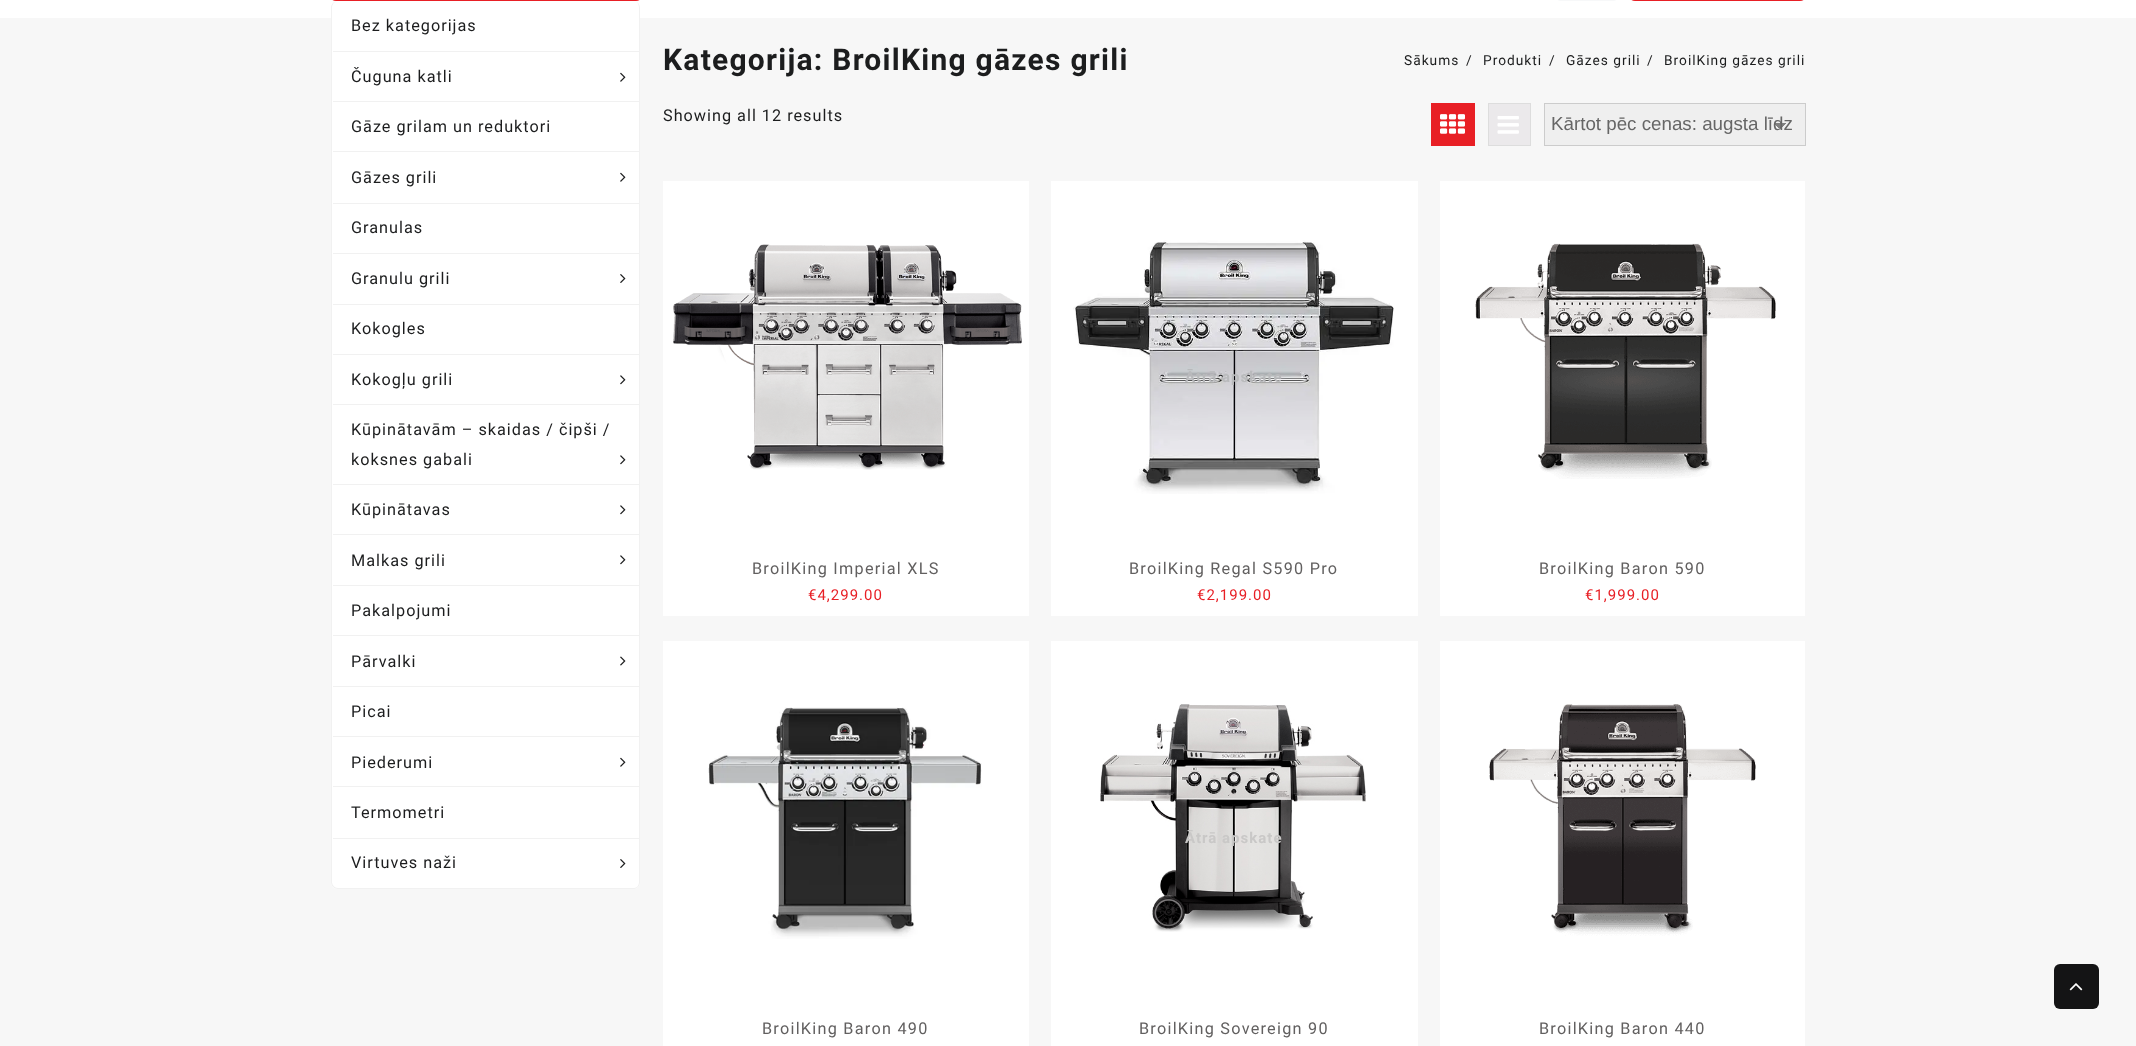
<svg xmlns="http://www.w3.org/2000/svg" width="2136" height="1046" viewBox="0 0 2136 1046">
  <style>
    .t1 { font: 16.25px Roboto; letter-spacing: 1px; fill: #1c1d1e; }
    .t2 { font: bold 30px Roboto; letter-spacing: 1.25px; fill: #1c1d1e; }
    .t3 { font: 13.75px Roboto; letter-spacing: 1px; fill: #1c1d1e; }
    .t4 { font: 18.75px Liberation Sans; fill: #666; }
    .t5 { font: 16.25px Roboto; letter-spacing: 1.25px; fill: #626060; }
    .t6 { font: 15px Roboto; letter-spacing: 1px; fill: #e81f25; }
    .t7 { font: bold 15px Roboto; letter-spacing: 1px; fill: #b9babc; }
    .t8 { font: bold 15px Roboto; letter-spacing: 1px; fill: #c9c8c7; }
  </style>
  <defs>
    <linearGradient id="g1" gradientUnits="userSpaceOnUse" x1="1780" y1="123" x2="1786" y2="129"><stop offset="0.5" stop-color="#808080"/><stop offset="0.5" stop-color="#efefef"/></linearGradient>
    <linearGradient id="g2" gradientUnits="userSpaceOnUse" x1="1774" y1="129" x2="1780" y2="123"><stop offset="0.5" stop-color="#efefef"/><stop offset="0.5" stop-color="#808080"/></linearGradient>
  </defs>
  <rect width="100%" height="100%" fill="#f7f7f7"/>
  <rect x="0" y="0" width="2136" height="18" fill="#fff"/>
  <rect x="1556" y="-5" width="62" height="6" rx="5" fill="#f7f8f9"/>
  <rect x="1630" y="-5" width="175" height="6" rx="5" fill="#e81f25"/>
  <rect x="331" y="-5" width="310" height="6" rx="5" fill="#e81f25"/>
  <rect x="331" y="1" width="309" height="888" rx="6" fill="#fff"/>
  <path d="M338 1H634C637 1 640 4 640 8V882C640 886 637 889 634 889H338C334 889 331 886 331 882V8C331 4 334 1 338 1ZM338 1H634C637 1 639 4 639 8V882C639 885 637 888 634 888H338C335 888 332 885 332 882V8C332 4 335 1 338 1Z" fill="#f1f1f1" fill-rule="evenodd"/>
  <rect x="333" y="51" width="306" height="1" fill="#f1f1f1"/>
  <text x="351" y="31" class="t1">Bez kategorijas</text>
  <rect x="333" y="101" width="306" height="1" fill="#f1f1f1"/>
  <text x="351" y="82" class="t1">Čuguna katli</text>
  <image x="620" y="72" width="6" height="10" href="images/1.png"/>
  <rect x="333" y="151" width="306" height="1" fill="#f1f1f1"/>
  <text x="351" y="132" class="t1">Gāze grilam un reduktori</text>
  <rect x="333" y="203" width="306" height="1" fill="#f1f1f1"/>
  <text x="351" y="183" class="t1">Gāzes grili</text>
  <image x="620" y="172" width="6" height="10" href="images/1.png"/>
  <rect x="333" y="253" width="306" height="1" fill="#f1f1f1"/>
  <text x="351" y="233" class="t1">Granulas</text>
  <rect x="333" y="304" width="306" height="1" fill="#f1f1f1"/>
  <text x="351" y="284" class="t1">Granulu grili</text>
  <image x="620" y="274" width="6" height="9" href="images/2.png"/>
  <rect x="333" y="354" width="306" height="1" fill="#f1f1f1"/>
  <text x="351" y="334" class="t1">Kokogles</text>
  <rect x="333" y="404" width="306" height="1" fill="#f1f1f1"/>
  <text x="351" y="385" class="t1">Kokogļu grili</text>
  <image x="620" y="375" width="6" height="10" href="images/3.png"/>
  <rect x="333" y="484" width="306" height="1" fill="#f1f1f1"/>
  <text x="351" y="435" class="t1">Kūpinātavām – skaidas / čipši /</text>
  <text x="351" y="465" class="t1">koksnes gabali</text>
  <image x="620" y="455" width="6" height="10" href="images/3.png"/>
  <rect x="333" y="534" width="306" height="1" fill="#f1f1f1"/>
  <text x="351" y="515" class="t1">Kūpinātavas</text>
  <image x="620" y="505" width="6" height="10" href="images/3.png"/>
  <rect x="333" y="585" width="306" height="1" fill="#f1f1f1"/>
  <text x="351" y="566" class="t1">Malkas grili</text>
  <image x="620" y="555" width="6" height="10" href="images/3.png"/>
  <rect x="333" y="635" width="306" height="1" fill="#f1f1f1"/>
  <text x="351" y="616" class="t1">Pakalpojumi</text>
  <rect x="333" y="686" width="306" height="1" fill="#f1f1f1"/>
  <text x="351" y="667" class="t1">Pārvalki</text>
  <image x="620" y="656" width="6" height="10" href="images/4.png"/>
  <rect x="333" y="736" width="306" height="1" fill="#f1f1f1"/>
  <text x="351" y="717" class="t1">Picai</text>
  <rect x="333" y="786" width="306" height="1" fill="#f1f1f1"/>
  <text x="351" y="768" class="t1">Piederumi</text>
  <image x="620" y="757" width="6" height="10" href="images/1.png"/>
  <rect x="333" y="838" width="306" height="1" fill="#f1f1f1"/>
  <text x="351" y="818" class="t1">Termometri</text>
  <text x="351" y="868" class="t1">Virtuves naži</text>
  <image x="620" y="859" width="6" height="9" href="images/2.png"/>
  <text x="663" y="70" class="t2">Kategorija: BroilKing gāzes grili</text>
  <text x="1404" y="65" class="t3">Sākums</text>
  <text x="1466" y="65" class="t3">/</text>
  <text x="1483" y="65" class="t3">Produkti</text>
  <text x="1549" y="65" class="t3">/</text>
  <text x="1566" y="65" class="t3">Gāzes grili</text>
  <text x="1647" y="65" class="t3">/</text>
  <text x="1664" y="65" class="t3">BroilKing gāzes grili</text>
  <text x="663" y="121" class="t1">Showing all 12 results</text>
  <rect x="1431" y="103" width="44" height="43" fill="#e81f25"/>
  <image x="1440" y="114" width="25" height="20" href="images/5.png"/>
  <rect x="1488.5" y="103.5" width="42" height="42" fill="#ebe9eb" stroke="#ddd"/>
  <image x="1497" y="116" width="22" height="18" href="images/6.png"/>
  <rect x="1545" y="104" width="260" height="41" fill="#efefef"/>
  <rect x="1780" y="123" width="6" height="5" fill="url(#g1)"/>
  <rect x="1774" y="123" width="6" height="5" fill="url(#g2)"/>
  <rect x="1544.5" y="103.5" width="261" height="42" fill="none" stroke="#ccc"/>
  <text x="1551" y="130" class="t4">Kārtot pēc cenas: augsta līdz</text>
  <rect x="663" y="181" width="366" height="435" fill="#fff"/>
  <image x="673" y="244" width="349" height="226" href="images/7.png"/>
  <text x="752" y="574" class="t5">BroilKing Imperial XLS</text>
  <text x="808" y="600" class="t6">€4,299.00</text>
  <rect x="1051" y="181" width="367" height="435" fill="#fff"/>
  <image x="1073" y="240" width="321" height="254" href="images/8.png"/>
  <text x="1185" y="382" class="t7">Ātrā apskate</text>
  <text x="1129" y="574" class="t5">BroilKing Regal S590 Pro</text>
  <text x="1197" y="600" class="t6">€2,199.00</text>
  <rect x="1440" y="181" width="365" height="435" fill="#fff"/>
  <image x="1475" y="243" width="301" height="236" href="images/9.png"/>
  <text x="1539" y="574" class="t5">BroilKing Baron 590</text>
  <text x="1585" y="600" class="t6">€1,999.00</text>
  <rect x="663" y="641" width="366" height="405" fill="#fff"/>
  <image x="708" y="707" width="274" height="232" href="images/10.png"/>
  <text x="762" y="1034" class="t5">BroilKing Baron 490</text>
  <rect x="1051" y="641" width="367" height="405" fill="#fff"/>
  <image x="1100" y="704" width="266" height="228" href="images/11.png"/>
  <text x="1185" y="843" class="t8">Ātrā apskate</text>
  <text x="1139" y="1034" class="t5">BroilKing Sovereign 90</text>
  <rect x="1440" y="641" width="365" height="405" fill="#fff"/>
  <image x="1489" y="704" width="267" height="232" href="images/12.png"/>
  <text x="1539" y="1034" class="t5">BroilKing Baron 440</text>
  <rect x="2054" y="964" width="45" height="45" rx="6" fill="#141415"/>
  <image x="2069" y="983" width="14" height="8" href="images/13.png"/>
</svg>
